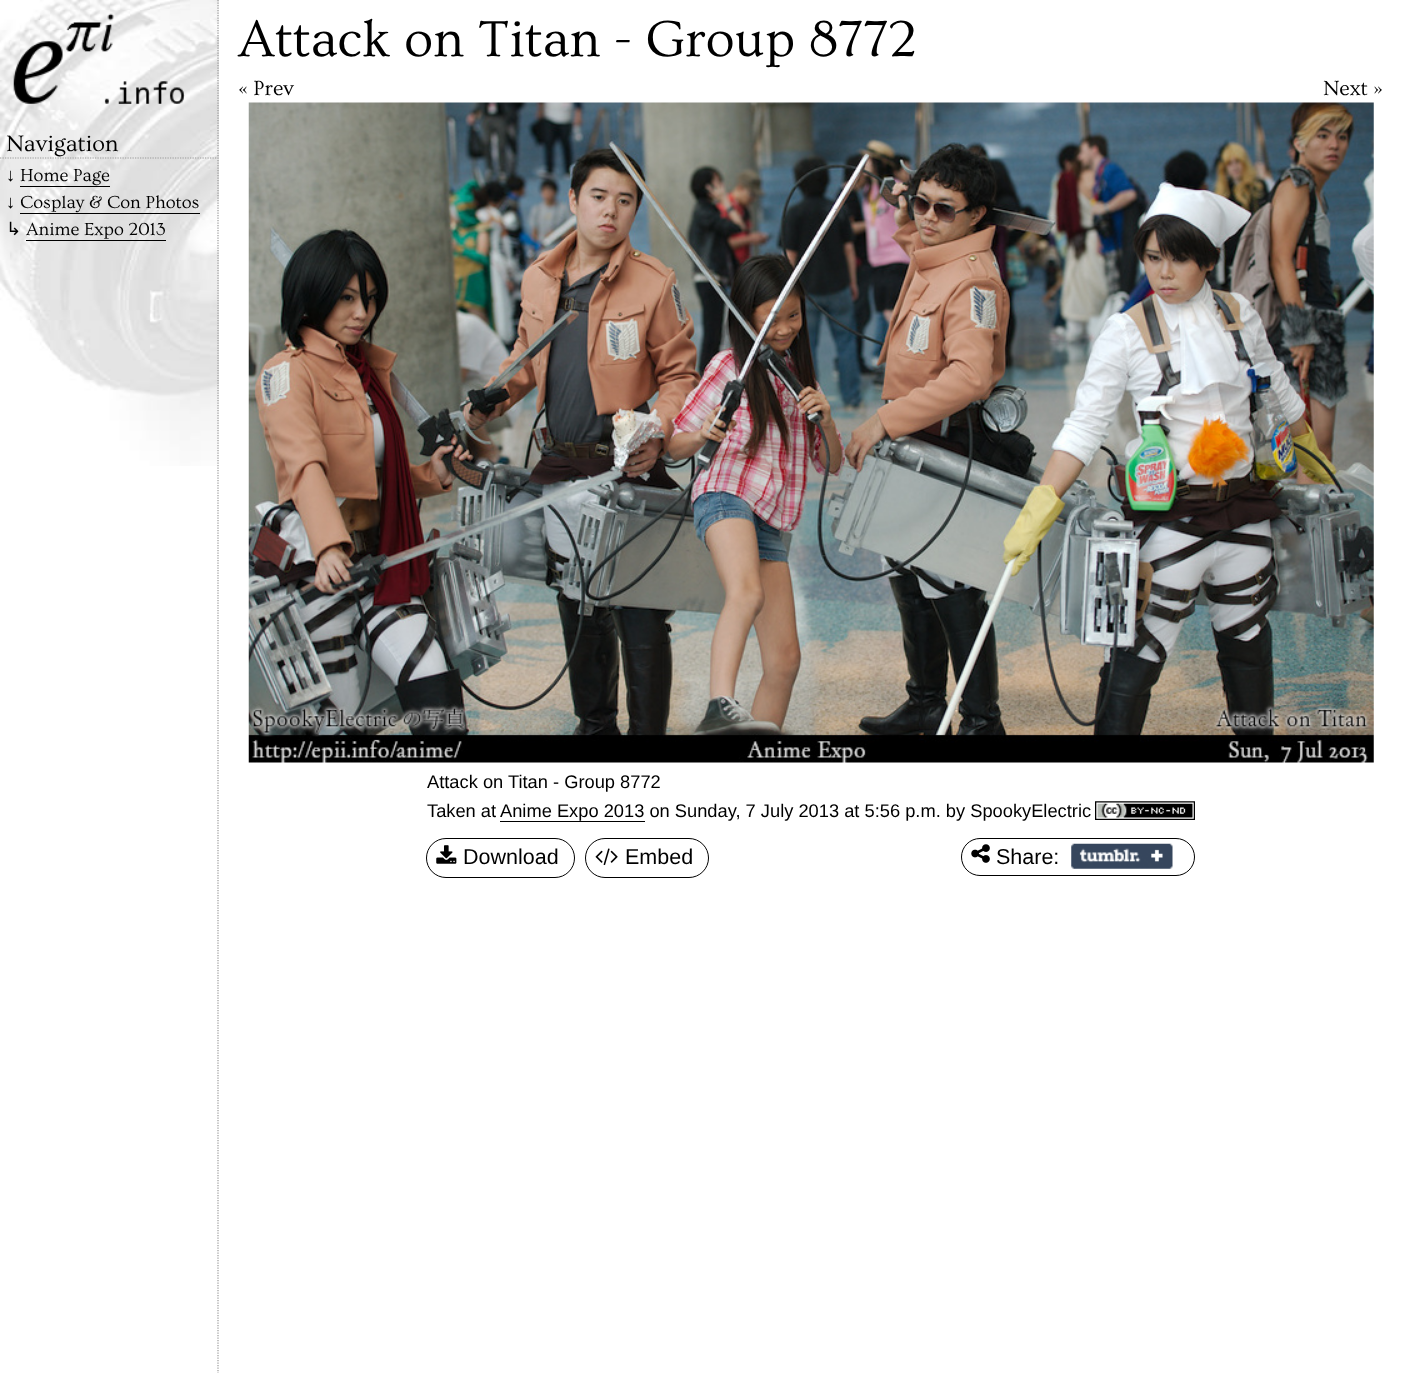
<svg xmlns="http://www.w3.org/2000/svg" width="1403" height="1373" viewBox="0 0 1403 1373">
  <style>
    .t1 { font: 23.5px Ovo; fill: #000; }
    .t2 { font: 18.3px Liberation Serif; fill: #000; }
    .t3 { font: 18.3px Ovo; fill: #000; }
    .t4 { font: 18.3px DejaVu Sans; fill: #000; }
    .t5 { font: 53.3px Ovo; fill: #000; }
    .t6 { font: 21.5px Ovo; fill: #000; }
    .t7 { font: 18.3px Liberation Sans; fill: #000; }
    .t8 { font: 21.5px Liberation Sans; fill: #000; }
  </style>
  <rect width="100%" height="100%" fill="#fff"/>
  <image x="0" y="0" width="219" height="466" href="images/1.png"/>
  <path d="M218 0V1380" fill="none" stroke="#999" stroke-width="1.2" stroke-dasharray="1.25 1.25"/>
  <image x="13" y="13" width="172" height="91" href="images/2.png"/>
  <path d="M0 158H217.5" fill="none" stroke="#999" stroke-width="1.2" stroke-dasharray="1.25 1.25"/>
  <text x="6" y="151" class="t1">Navigation</text>
  <text x="6" y="181" class="t2">↓</text>
  <text x="20" y="181" class="t3">Home Page</text>
  <rect x="20" y="186" width="90" height="1" fill="#000"/>
  <text x="6" y="208" class="t2">↓</text>
  <text x="20" y="208" class="t3">Cosplay &amp; Con Photos</text>
  <rect x="20" y="213" width="180" height="1" fill="#000"/>
  <text x="6" y="235" class="t4">↳</text>
  <text x="26" y="235" class="t3">Anime Expo 2013</text>
  <rect x="26" y="240" width="140" height="1" fill="#000"/>
  <text x="238" y="56" class="t5">Attack on Titan - Group 8772</text>
  <text x="238" y="95" class="t6">« Prev</text>
  <text x="1323" y="95" class="t6">Next »</text>
  <image x="248" y="102" width="1126" height="661" href="images/3.png"/>
  <text x="427" y="788" class="t7">Attack on Titan - Group 8772</text>
  <text x="427" y="817" class="t7">Taken at</text>
  <text x="500" y="817" class="t7">Anime Expo 2013 on Sunday, 7 July 2013 at 5:56 p.m. by SpookyElectric</text>
  <rect x="500" y="821" width="145" height="1" fill="#000"/>
  <image x="1095" y="801" width="100" height="19" href="images/4.png"/>
  <rect x="426.5" y="838.5" width="148" height="39" rx="19.5" fill="none" stroke="#000"/>
  <image x="436" y="845" width="21" height="19" href="images/5.png"/>
  <text x="463" y="864" class="t8">Download</text>
  <rect x="585.5" y="838.5" width="123" height="39" rx="19.5" fill="none" stroke="#000"/>
  <image x="595" y="848" width="23" height="18" href="images/6.png"/>
  <text x="625" y="864" class="t8">Embed</text>
  <rect x="961.5" y="838.5" width="233" height="37" rx="18.5" fill="none" stroke="#000"/>
  <image x="971" y="844" width="19" height="19" href="images/7.png"/>
  <text x="996" y="864" class="t8">Share:</text>
  <image x="1071" y="843" width="102" height="26" href="images/8.png"/>
</svg>
